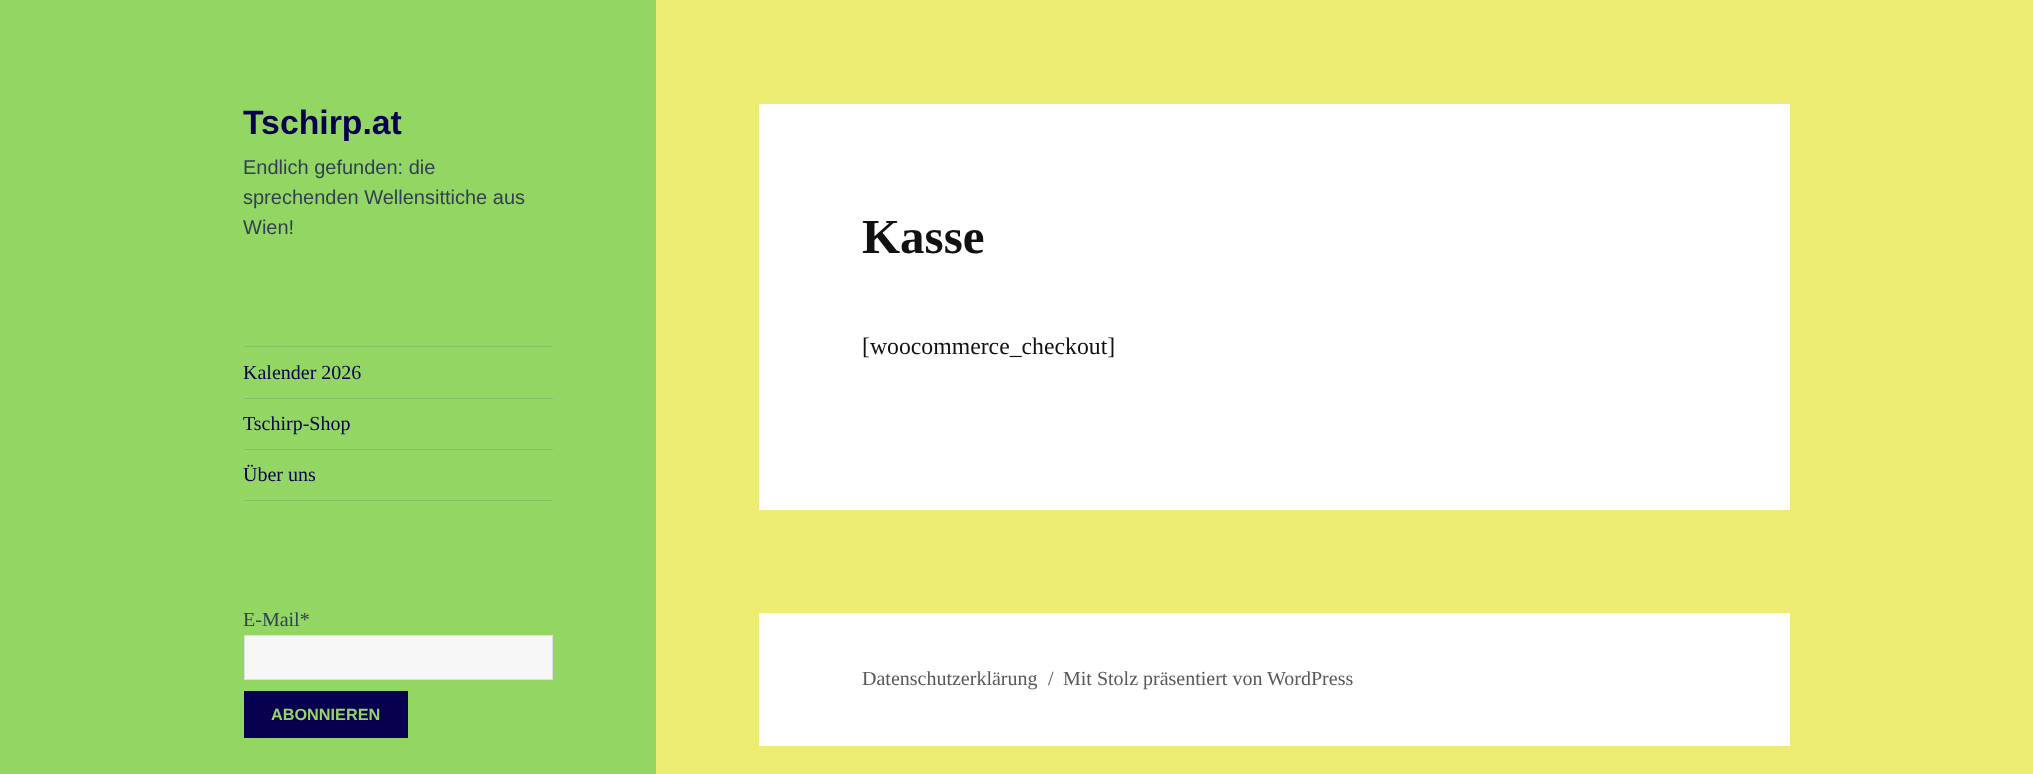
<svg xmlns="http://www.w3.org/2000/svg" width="2033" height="774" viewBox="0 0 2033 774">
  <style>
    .t1 { font: bold 33.75px Liberation Sans; fill: #07004f; }
    .t2 { font: 20px Liberation Sans; fill: #314055; }
    .t3 { font: 20px Liberation Serif; fill: #07004f; }
    .t4 { font: 20px Liberation Serif; fill: #314055; }
    .t5 { font: bold 16.25px Liberation Sans; fill: #93d664; }
    .t6 { font: bold 49px Liberation Serif; fill: #111; }
    .t7 { font: 23.75px Liberation Serif; fill: #111; }
    .t8 { font: 20px Liberation Serif; fill: #585858; }
  </style>
  <rect width="100%" height="100%" fill="#eded74"/>
  <rect x="0" y="0" width="656" height="774" fill="#93d664"/>
  <text x="243" y="134" class="t1">Tschirp.at</text>
  <text x="243" y="174" class="t2">Endlich gefunden: die</text>
  <text x="243" y="204" class="t2">sprechenden Wellensittiche aus</text>
  <text x="243" y="234" class="t2">Wien!</text>
  <rect x="244" y="346" width="309" height="1" fill="#85c162"/>
  <rect x="244" y="500" width="309" height="1" fill="#85c162"/>
  <text x="243" y="379" class="t3">Kalender 2026</text>
  <rect x="244" y="398" width="309" height="1" fill="#85c162"/>
  <text x="243" y="430" class="t3">Tschirp-Shop</text>
  <rect x="244" y="449" width="309" height="1" fill="#85c162"/>
  <text x="243" y="481" class="t3">Über uns</text>
  <text x="243" y="626" class="t4">E-Mail*</text>
  <rect x="244.5" y="635.5" width="308" height="44" fill="#f7f7f7" stroke="#dfdee6"/>
  <rect x="244" y="691" width="164" height="47" fill="#07004f"/>
  <text x="271" y="720" class="t5">ABONNIEREN</text>
  <rect x="759" y="104" width="1031" height="406" fill="#fff"/>
  <text x="862" y="253" class="t6">Kasse</text>
  <text x="862" y="354" class="t7">[woocommerce_checkout]</text>
  <rect x="759" y="613" width="1031" height="133" fill="#fff"/>
  <text x="862" y="685" class="t8">Datenschutzerklärung</text>
  <text x="1048" y="685" class="t8">/</text>
  <text x="1063" y="685" class="t8">Mit Stolz präsentiert von WordPress</text>
</svg>
